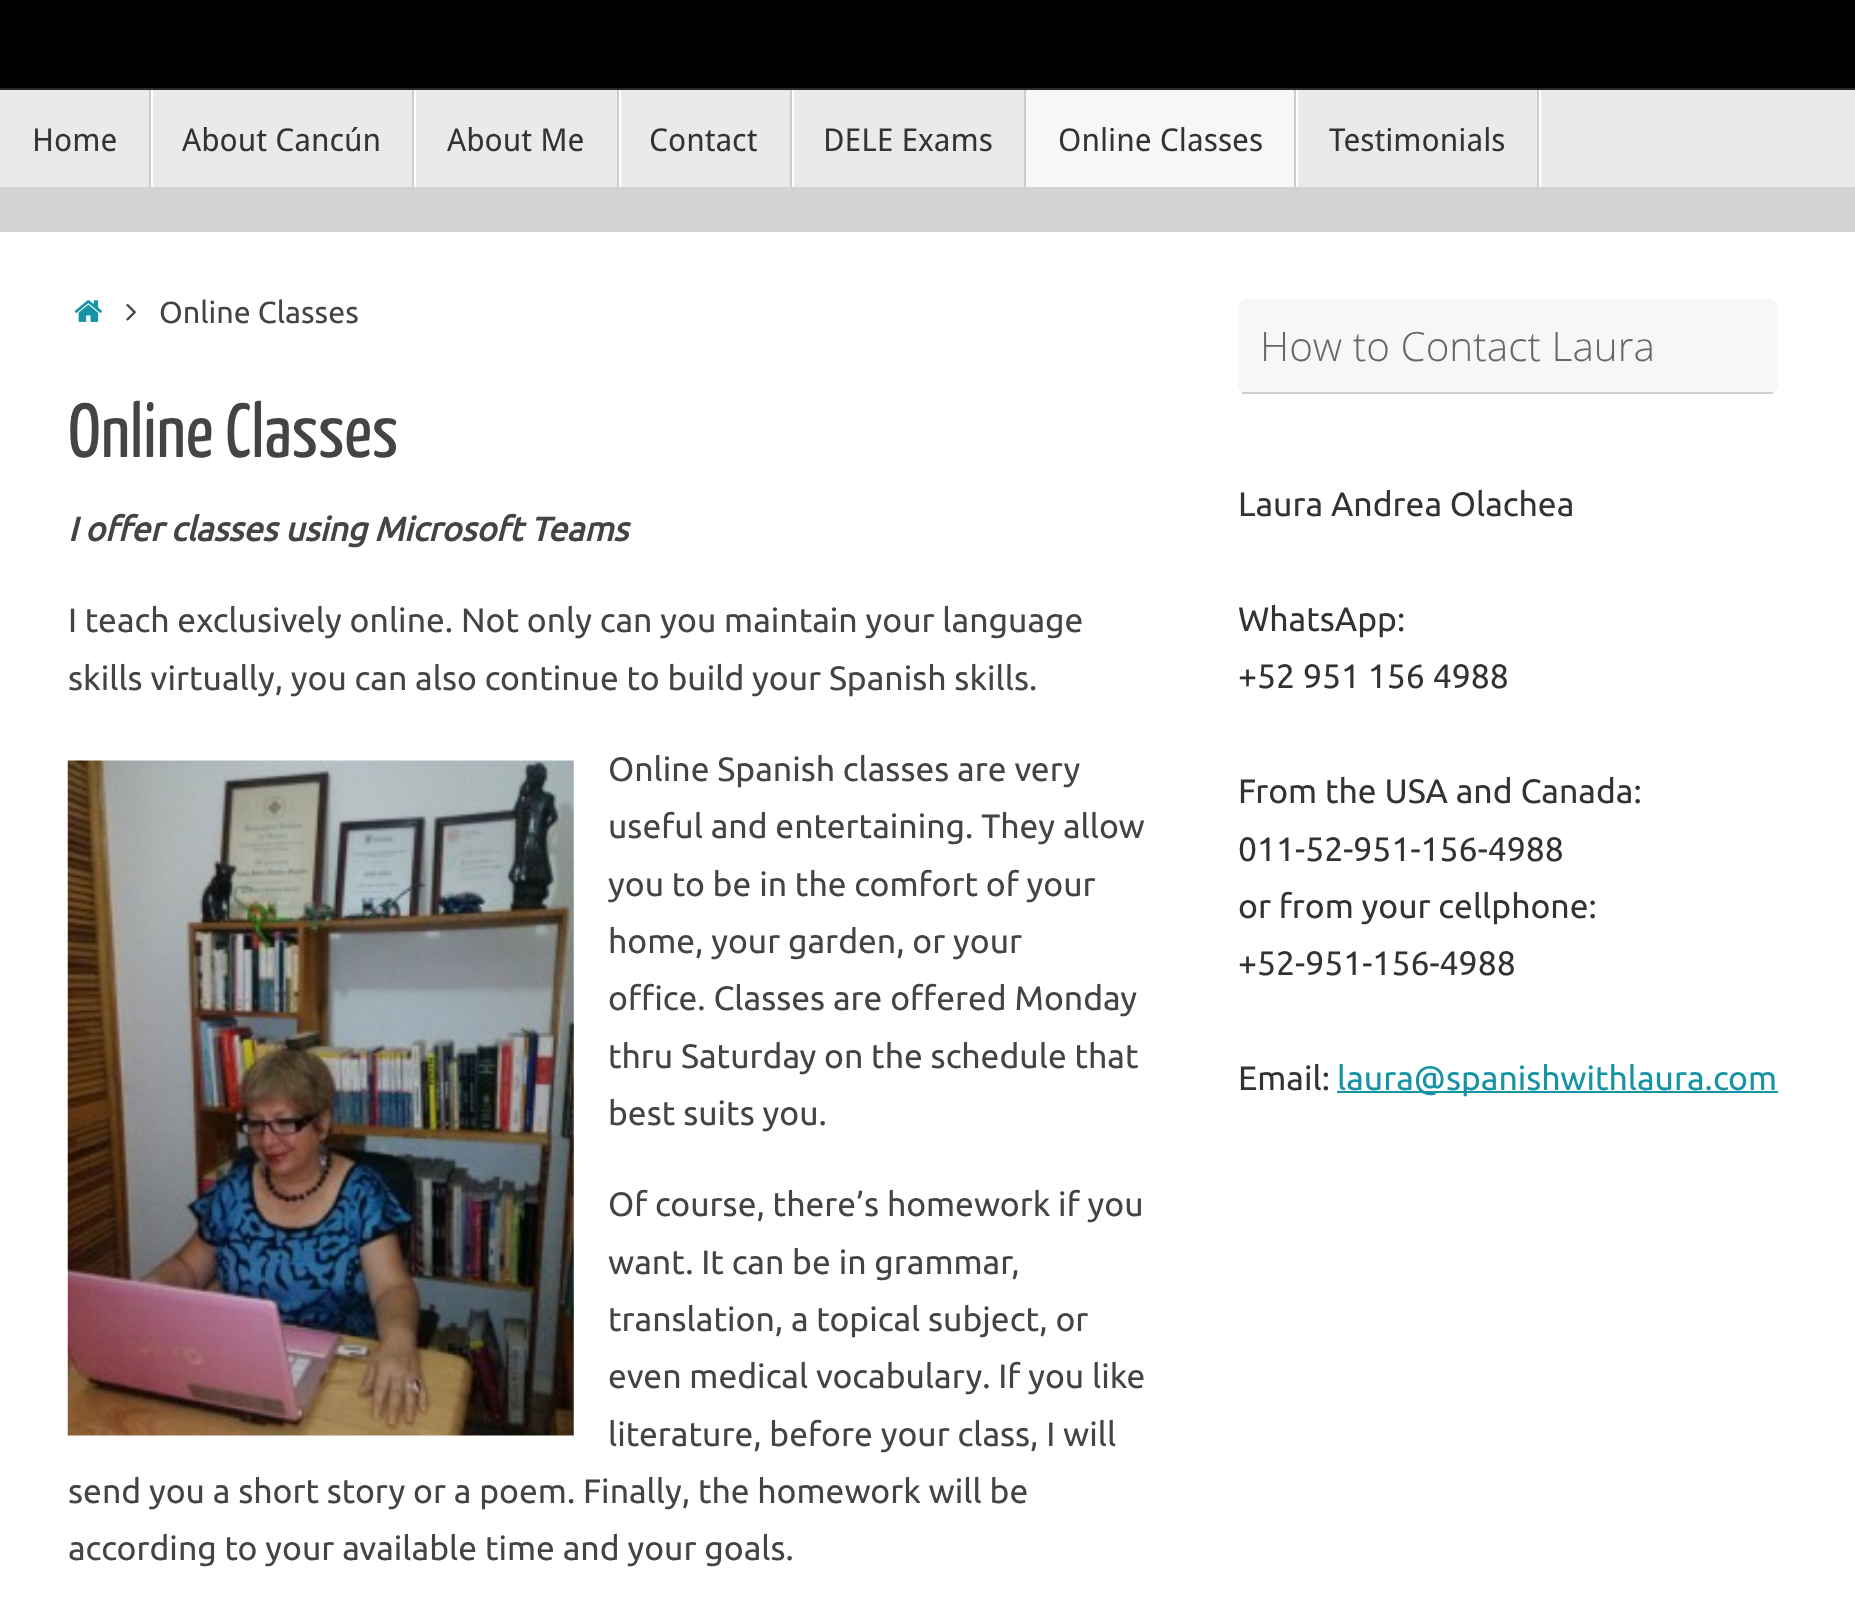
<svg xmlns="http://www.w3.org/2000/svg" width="1855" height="1617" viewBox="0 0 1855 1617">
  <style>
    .t1 { font: 31.5px Droid Sans; fill: #333; }
    .t2 { font: 30.5px Ubuntu; fill: #444; }
    .t3 { font: 76.5px Yanone Kaffeesatz; fill: #444; }
    .t4 { font: italic bold 33.75px Ubuntu; fill: #444; }
    .t5 { font: 33.75px Ubuntu; fill: #444; }
    .t6 { font: 300 40.5px Open Sans; fill: #666; }
    .t7 { font: 33.75px Ubuntu; fill: #333; }
    .t8 { font: 33.75px Ubuntu; fill: #1693a5; }
  </style>
  <rect width="100%" height="100%" fill="#d3d3d3"/>
  <rect x="0" y="0" width="1855" height="88" fill="#000"/>
  <rect x="0" y="88" width="1855" height="2" fill="#282828"/>
  <rect x="0" y="90" width="1855" height="97" fill="#eaeaea"/>
  <path d="M2 187H153V90H151V187Z" fill="#fff"/>
  <rect x="149" y="90" width="2" height="97" fill="#ccc"/>
  <text x="32" y="151" class="t1">Home</text>
  <path d="M153 187H416V90H414V187Z" fill="#fff"/>
  <rect x="412" y="90" width="2" height="97" fill="#ccc"/>
  <text x="182" y="151" class="t1">About Cancún</text>
  <path d="M416 187H621V90H619V187Z" fill="#fff"/>
  <rect x="617" y="90" width="2" height="97" fill="#ccc"/>
  <text x="447" y="151" class="t1">About Me</text>
  <path d="M621 187H794V90H792V187Z" fill="#fff"/>
  <rect x="790" y="90" width="2" height="97" fill="#ccc"/>
  <text x="649" y="151" class="t1">Contact</text>
  <rect x="1024" y="90" width="2" height="97" fill="#ccc"/>
  <text x="823" y="151" class="t1">DELE Exams</text>
  <rect x="1026" y="90" width="268" height="97" fill="#f7f7f7"/>
  <path d="M1028 187H1298V90H1296V187Z" fill="#fff"/>
  <rect x="1294" y="90" width="2" height="97" fill="#ccc"/>
  <text x="1058" y="151" class="t1">Online Classes</text>
  <path d="M1298 187H1541V90H1539V187Z" fill="#fff"/>
  <rect x="1537" y="90" width="2" height="97" fill="#ccc"/>
  <text x="1329" y="151" class="t1">Testimonials</text>
  <rect x="0" y="232" width="1855" height="1385" fill="#fff"/>
  <image x="74" y="300" width="28" height="22" href="images/1.png"/>
  <image x="126" y="303" width="10" height="18" href="images/2.png"/>
  <text x="159" y="323" class="t2">Online Classes</text>
  <text x="68" y="457" class="t3">Online Classes</text>
  <text x="68" y="541" class="t4">I offer classes using Microsoft Teams</text>
  <text x="68" y="632" class="t5">I teach exclusively online. Not only can you maintain your language</text>
  <text x="68" y="690" class="t5">skills virtually, you can also continue to build your Spanish skills.</text>
  <image x="67" y="760" width="507" height="676" href="images/3.png"/>
  <text x="608" y="781" class="t5">Online Spanish classes are very</text>
  <text x="608" y="838" class="t5">useful and entertaining. They allow</text>
  <text x="608" y="896" class="t5">you to be in the comfort of your</text>
  <text x="608" y="953" class="t5">home, your garden, or your</text>
  <text x="608" y="1010" class="t5">office. Classes are offered Monday</text>
  <text x="608" y="1068" class="t5">thru Saturday on the schedule that</text>
  <text x="608" y="1125" class="t5">best suits you.</text>
  <text x="608" y="1216" class="t5">Of course, there’s homework if you</text>
  <text x="608" y="1274" class="t5">want. It can be in grammar,</text>
  <text x="608" y="1331" class="t5">translation, a topical subject, or</text>
  <text x="608" y="1388" class="t5">even medical vocabulary. If you like</text>
  <text x="608" y="1446" class="t5">literature, before your class, I will</text>
  <text x="68" y="1503" class="t5">send you a short story or a poem. Finally, the homework will be</text>
  <text x="68" y="1560" class="t5">according to your available time and your goals.</text>
  <rect x="1238" y="299" width="540" height="95" rx="9" fill="#f7f7f7"/>
  <rect x="1242" y="392" width="531" height="2" fill="#cfcfcf"/>
  <text x="1260" y="361" class="t6">How to Contact Laura</text>
  <text x="1238" y="516" class="t7">Laura Andrea Olachea</text>
  <text x="1238" y="631" class="t7">WhatsApp:</text>
  <text x="1238" y="688" class="t7">+52 951 156 4988</text>
  <text x="1238" y="803" class="t7">From the USA and Canada:</text>
  <text x="1238" y="861" class="t7">011-52-951-156-4988</text>
  <text x="1238" y="918" class="t7">or from your cellphone:</text>
  <text x="1238" y="975" class="t7">+52-951-156-4988</text>
  <text x="1238" y="1090" class="t7">Email:</text>
  <rect x="1337" y="1091" width="441" height="2" fill="#1693a5"/>
  <text x="1337" y="1090" class="t8">laura@spanishwithlaura.com</text>
</svg>
